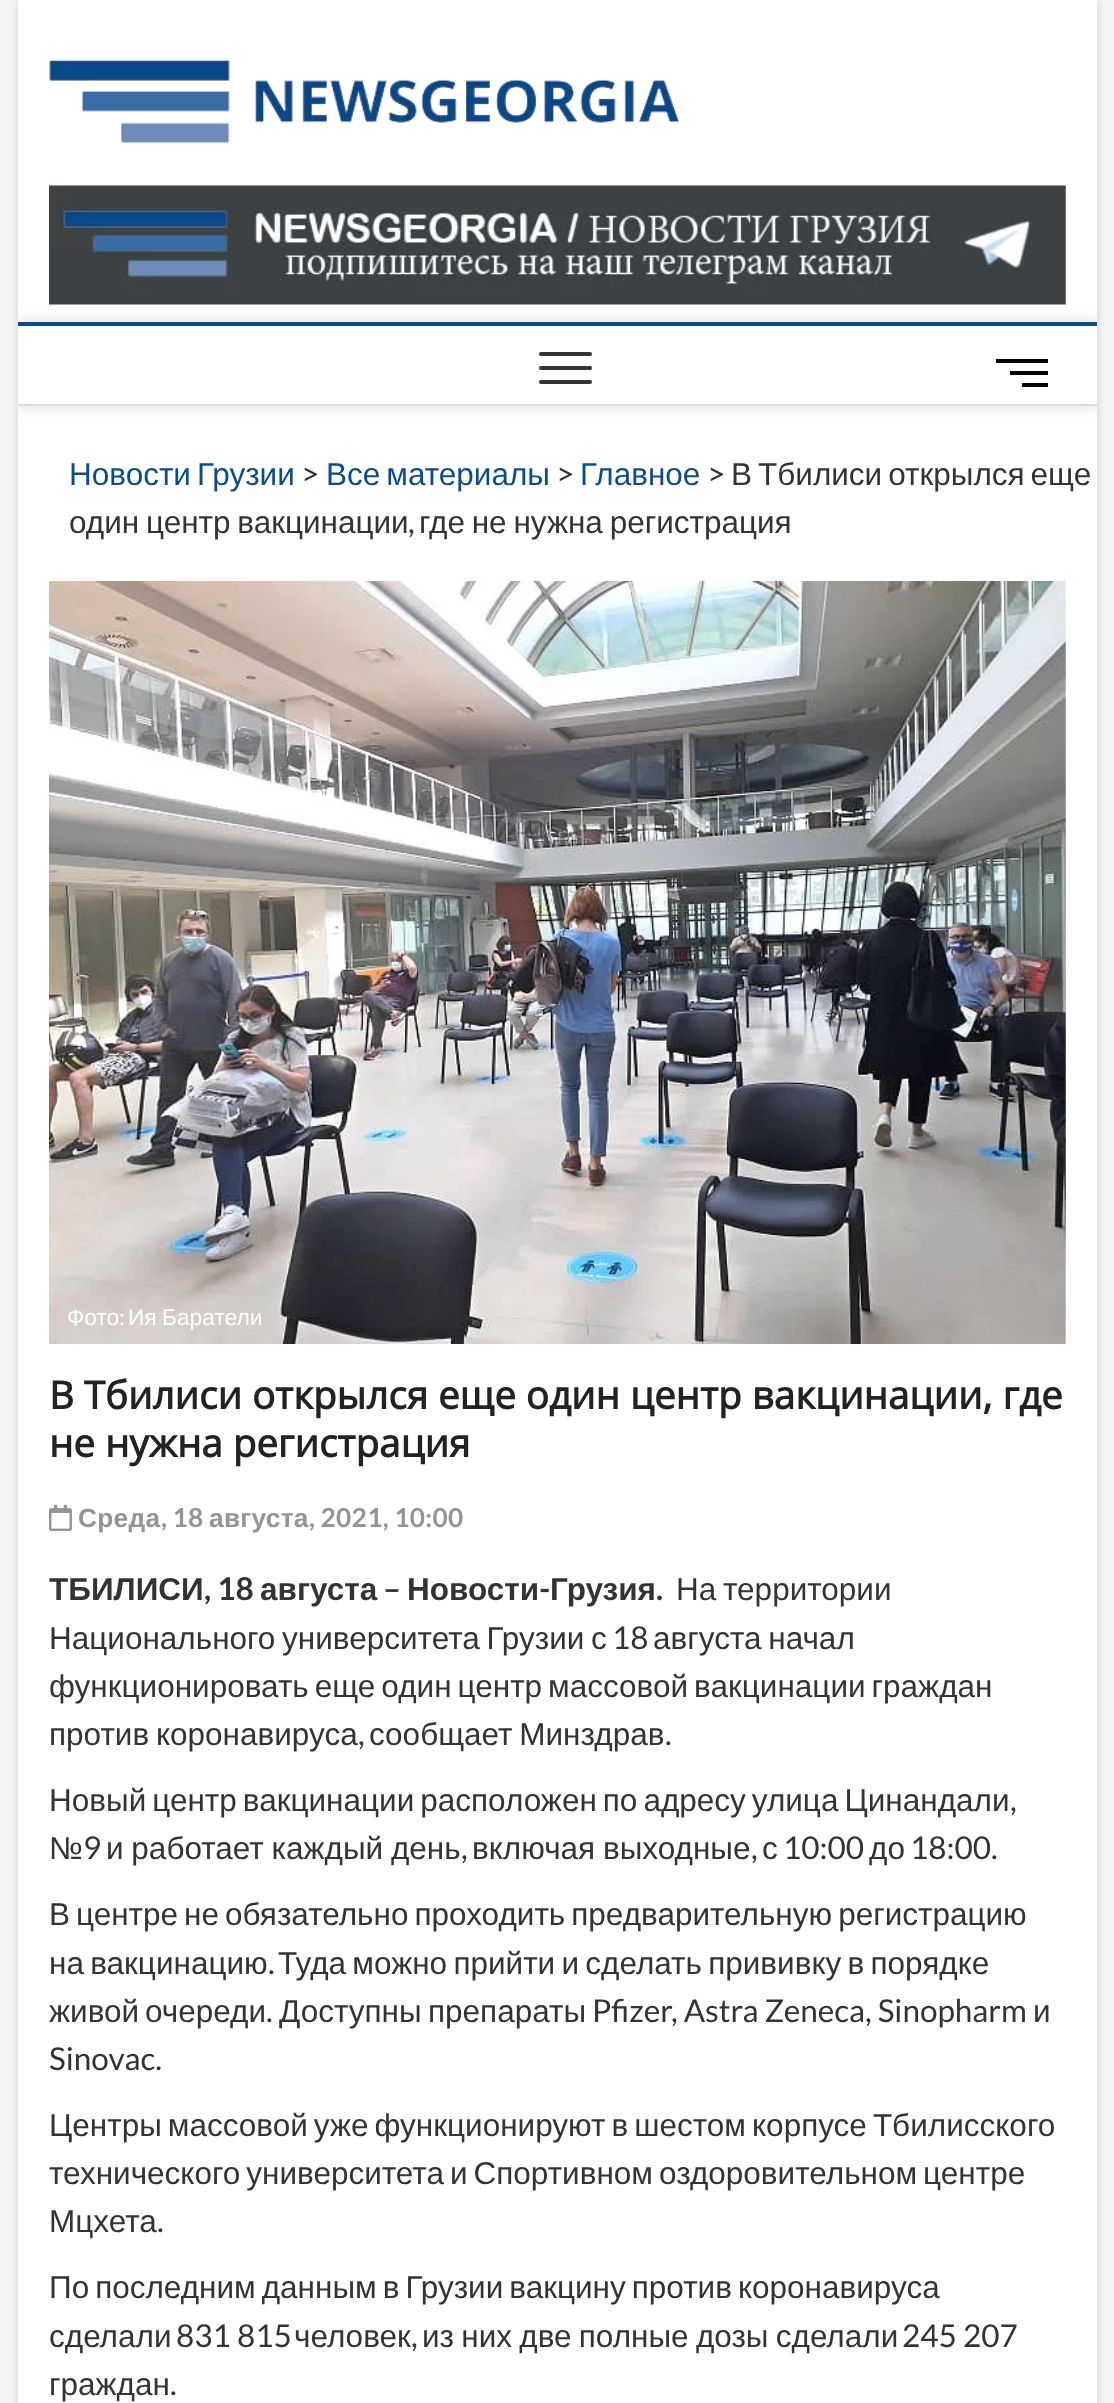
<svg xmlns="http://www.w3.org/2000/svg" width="1114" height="2403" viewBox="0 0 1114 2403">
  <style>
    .t1 { font: 31.5px Liberation Sans; fill: #0c4c8a; }
    .t2 { font: 31.5px Lato; fill: #333; }
    .t3 { font: 31.5px Liberation Sans; fill: #333; }
    .t4 { font: 22.75px Liberation Sans; fill: #fff; }
    .t5 { font: 22.75px Lato; fill: #fff; }
    .t6 { font: bold 38.5px Open Sans; fill: #222; }
    .t7 { font: bold 26.25px Liberation Sans; letter-spacing: 0.3px; fill: #949494; }
    .t8 { font: bold 26.25px Lato; letter-spacing: 0.3px; fill: #949494; }
    .t9 { font: bold 31.5px Liberation Sans; fill: #333; }
    .t10 { font: bold 31.5px Lato; fill: #333; }
  </style>
  <defs>
    <clipPath id="clip1"><rect x="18" y="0" width="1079" height="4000"/></clipPath>
    <clipPath id="clip2"><path d="M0 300H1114V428H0ZM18 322H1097V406H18Z" clip-rule="evenodd"/></clipPath>
  </defs>
  <rect width="100%" height="100%" fill="#f4f4f4"/>
  <rect x="18" y="2" width="1079" height="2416" fill="#00000026" filter="blur(5px)"/>
  <rect x="18" y="0" width="1079" height="2403" fill="#fff"/>
  <image x="49" y="59" width="630" height="85" href="images/1.png"/>
  <image x="49" y="185" width="1017" height="120" href="images/2.png"/>
  <g clip-path="url(#clip1)">
    <g clip-path="url(#clip2)">
      <rect x="18" y="322" width="1079" height="84" fill="#00000026" filter="blur(7px)"/>
    </g>
  </g>
  <rect x="18" y="322" width="1079" height="4" fill="#0c4c8a"/>
  <rect x="18" y="404" width="1079" height="2" fill="#ddd"/>
  <rect x="539" y="366" width="53" height="4" rx="2" fill="#333"/>
  <rect x="539" y="352" width="53" height="4" rx="2" fill="#333"/>
  <rect x="539" y="380" width="53" height="4" rx="2" fill="#333"/>
  <rect x="1010" y="371" width="38" height="4" fill="#000"/>
  <rect x="996" y="359" width="52" height="4" fill="#000"/>
  <rect x="1022" y="383" width="26" height="4" fill="#000"/>
  <text x="69" y="485" word-spacing="-2.75" class="t1">Новости Грузии</text>
  <text x="301" y="485" class="t2">&gt;</text>
  <text x="326" y="485" word-spacing="-2.75" class="t1">Все материалы</text>
  <text x="556" y="485" class="t2">&gt;</text>
  <text x="580" y="485" class="t1">Главное</text>
  <text x="707" y="485" class="t2">&gt;</text>
  <text x="731" y="485" word-spacing="-2.75" class="t3">В Тбилиси открылся еще</text>
  <text x="69" y="533" word-spacing="-2" class="t3">один центр вакцинации</text>
  <text x="408" y="533" class="t2">,</text>
  <text x="419" y="533" word-spacing="-2" class="t3">где не нужна регистрация</text>
  <image x="49" y="581" width="1017" height="763" href="images/3.png"/>
  <text x="67" y="1325" class="t4">Фото</text>
  <text x="119" y="1325" class="t5">:</text>
  <text x="128" y="1325" word-spacing="-1" class="t4">Ия Баратели</text>
  <text x="49" y="1409" class="t6">В Тбилиси открылся еще один центр вакцинации, где</text>
  <text x="49" y="1457" class="t6">не нужна регистрация</text>
  <image x="49" y="1504" width="23" height="27" href="images/4.png"/>
  <text x="78" y="1527" class="t7">Среда</text>
  <text x="161" y="1527" class="t8">, 18</text>
  <text x="209" y="1527" class="t7">августа</text>
  <text x="309" y="1527" class="t8">, 2021, 10:00</text>
  <text x="49" y="1600" class="t9">ТБИЛИСИ</text>
  <text x="204" y="1600" class="t10">, 18</text>
  <text x="260" y="1600" class="t9">августа</text>
  <text x="383" y="1600" class="t10">–</text>
  <text x="407" y="1600" class="t9">Новости</text>
  <text x="539" y="1600" class="t10">-</text>
  <text x="550" y="1600" class="t9">Грузия</text>
  <text x="676" y="1600" word-spacing="-2" class="t3">На территории</text>
  <text x="656" y="1600" class="t10">.</text>
  <text x="49" y="1649" word-spacing="-2" class="t3">Национального университета Грузии с</text>
  <text x="612" y="1649" class="t2">18</text>
  <text x="653" y="1649" word-spacing="-2" class="t3">августа начал</text>
  <text x="49" y="1697" word-spacing="-2.75" class="t3">функционировать еще один центр массовой вакцинации граждан</text>
  <text x="49" y="1745" word-spacing="-2" class="t3">против коронавируса</text>
  <text x="358" y="1745" class="t2">,</text>
  <text x="369" y="1745" word-spacing="-2" class="t3">сообщает Минздрав</text>
  <text x="665" y="1745" class="t2">.</text>
  <text x="49" y="1811" word-spacing="-2.75" class="t3">Новый центр вакцинации расположен по адресу улица Цинандали</text>
  <text x="1010" y="1811" class="t2">,</text>
  <text x="49" y="1859" class="t3">№</text>
  <text x="83" y="1859" class="t2">9</text>
  <text x="106" y="1859" word-spacing="-1" class="t3">и работает каждый день</text>
  <text x="461" y="1859" class="t2">,</text>
  <text x="472" y="1859" word-spacing="-1" class="t3">включая выходные</text>
  <text x="751" y="1859" class="t2">,</text>
  <text x="762" y="1859" class="t3">с</text>
  <text x="783" y="1859" class="t2">10:00</text>
  <text x="869" y="1859" class="t3">до</text>
  <text x="910" y="1859" class="t2">18:00.</text>
  <text x="49" y="1925" word-spacing="-2.75" class="t3">В центре не обязательно проходить предварительную регистрацию</text>
  <text x="49" y="1974" word-spacing="-2.5" class="t3">на вакцинацию</text>
  <text x="268" y="1974" class="t2">.</text>
  <text x="278" y="1974" word-spacing="-2.5" class="t3">Туда можно прийти и сделать прививку в порядке</text>
  <text x="49" y="2022" class="t3">живой</text>
  <text x="145" y="2022" class="t3">очереди</text>
  <text x="266" y="2022" class="t2">.</text>
  <text x="279" y="2022" class="t3">Доступны</text>
  <text x="428" y="2022" class="t3">препараты</text>
  <text x="592" y="2022" class="t2">Pfizer, Astra Zeneca, Sinopharm</text>
  <text x="1033" y="2022" class="t3">и</text>
  <text x="49" y="2070" class="t2">Sinovac.</text>
  <text x="49" y="2136" word-spacing="-2.75" class="t3">Центры массовой уже функционируют в шестом корпусе Тбилисского</text>
  <text x="49" y="2184" word-spacing="-2.75" class="t3">технического университета и Спортивном оздоровительном центре</text>
  <text x="49" y="2232" class="t3">Мцхета</text>
  <text x="157" y="2232" class="t2">.</text>
  <text x="49" y="2298" word-spacing="-2.75" class="t3">По последним данным в Грузии вакцину против коронавируса</text>
  <text x="49" y="2347" class="t3">сделали</text>
  <text x="176" y="2347" class="t2">831 815</text>
  <text x="294" y="2347" class="t3">человек</text>
  <text x="411" y="2347" class="t2">,</text>
  <text x="422" y="2347" word-spacing="-1.5" class="t3">из них две полные дозы сделали</text>
  <text x="902" y="2347" class="t2">245 207</text>
  <text x="49" y="2395" class="t3">граждан</text>
  <text x="170" y="2395" class="t2">.</text>
</svg>
